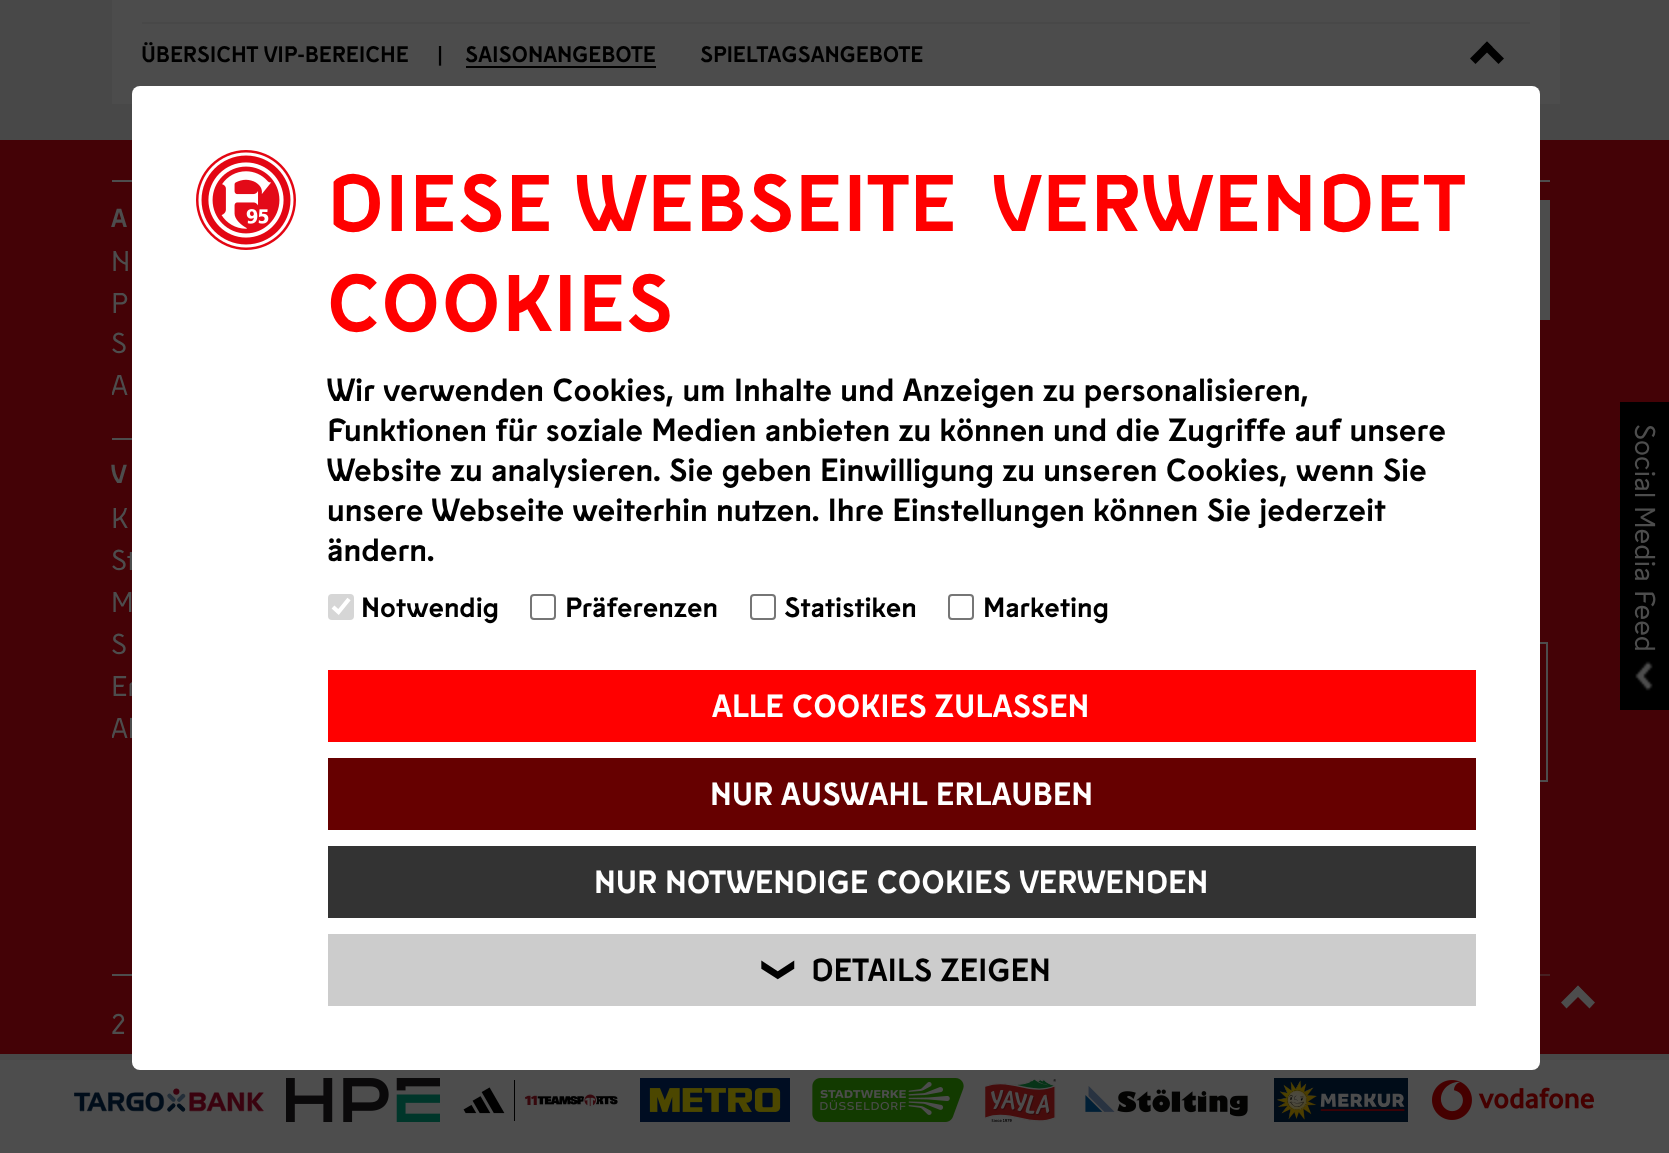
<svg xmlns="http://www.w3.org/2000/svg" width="1669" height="1153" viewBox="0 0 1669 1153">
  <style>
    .t1 { font: bold 26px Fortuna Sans; letter-spacing: 1px; fill: #4d4d4d; }
    .t2 { font: 28.75px Fortuna Sans; fill: #4d4d4d; }
    .t3 { font: bold 22.4px Fortuna Sans; fill: #000; }
    .t4 { font: bold 80px Fortuna Sans; letter-spacing: 1.6px; fill: #f00; }
    .t5 { font: bold 32px Fortuna Sans; fill: #000; }
    .t6 { font: bold 28px Fortuna Sans; fill: #000; }
    .t7 { font: bold 32px Fortuna Sans; fill: #fff; }
    .t8 { font: bold 32px DejaVu Sans; fill: #000; }
  </style>
  <defs>
    <clipPath id="clip1"><rect x="112" y="242" width="208" height="166"/></clipPath>
    <clipPath id="clip2"><rect x="112" y="498" width="208" height="252"/></clipPath>
  </defs>
  <rect width="100%" height="100%" fill="#484848"/>
  <rect x="0" y="140" width="1669" height="914" fill="#440206"/>
  <rect x="112" y="180" width="20" height="2" fill="#4d4d4d"/>
  <text x="111" y="227" class="t1">A</text>
  <text x="111" y="271" class="t2">N</text>
  <text x="111" y="313" class="t2">P</text>
  <text x="111" y="353" class="t2">S</text>
  <g clip-path="url(#clip1)">
    <text x="111" y="395" class="t2">A</text>
  </g>
  <rect x="112" y="438" width="20" height="2" fill="#4d4d4d"/>
  <text x="111" y="483" class="t1">V</text>
  <text x="111" y="528" class="t2">K</text>
  <text x="111" y="570" class="t2">St</text>
  <text x="111" y="612" class="t2">M</text>
  <text x="111" y="654" class="t2">S</text>
  <text x="111" y="696" class="t2">Er</text>
  <g clip-path="url(#clip2)">
    <text x="111" y="738" class="t2">Al</text>
  </g>
  <rect x="1540" y="180" width="10" height="2" fill="#4d4d4d"/>
  <image x="1540" y="200" width="10" height="120" href="images/1.png"/>
  <rect x="1409" y="643" width="138" height="138" fill="none" stroke="#4d4d4d" stroke-width="2"/>
  <rect x="112" y="974" width="20" height="2" fill="#4d4d4d"/>
  <rect x="1540" y="974" width="10" height="2" fill="#472022"/>
  <text x="111" y="1034" class="t2">2</text>
  <rect x="112" y="0" width="1448" height="104" fill="#4c4c4c"/>
  <rect x="142" y="22" width="1388" height="2" fill="#484848"/>
  <text x="141" y="62" class="t3">ÜBERSICHT VIP-BEREICHE</text>
  <text x="437" y="62" class="t3">|</text>
  <text x="465" y="62" class="t3">SAISONANGEBOTE</text>
  <rect x="466" y="66" width="190" height="2" fill="#000"/>
  <text x="700" y="62" class="t3">SPIELTAGSANGEBOTE</text>
  <path d="M1475.5 64L1470 58.5L1487 41.5L1492.5 47Z" fill="#000"/>
  <path d="M1498.5 64L1481.5 47L1487 41.5L1504 58.5Z" fill="#000"/>
  <rect x="1620" y="402" width="49" height="308" fill="#000"/>
  <image x="1635" y="661" width="18" height="30" href="images/2.png"/>
  <text x="1635" y="424" transform="rotate(90 1635 424)" class="t2">Social Media</text>
  <text x="1635" y="590" transform="rotate(90 1635 590)" class="t2">Feed</text>
  <path d="M1566.5 1008.5L1561 1002.5L1578 985.5L1583.5 991.5Z" fill="#4d4d4d"/>
  <path d="M1589.5 1008.5L1572.5 991.5L1578 985.5L1595 1002.5Z" fill="#4d4d4d"/>
  <rect x="0" y="1060" width="1669" height="93" fill="#4d4d4d"/>
  <image x="74" y="1088" width="190" height="24" href="images/3.png"/>
  <image x="286" y="1078" width="154" height="44" href="images/4.png"/>
  <image x="463" y="1080" width="155" height="41" href="images/5.png"/>
  <image x="640" y="1078" width="150" height="44" href="images/6.png"/>
  <image x="812" y="1078" width="152" height="44" href="images/7.png"/>
  <image x="985" y="1079" width="71" height="43" href="images/8.png"/>
  <image x="1085" y="1086" width="163" height="31" href="images/9.png"/>
  <image x="1274" y="1078" width="134" height="44" href="images/10.png"/>
  <image x="1432" y="1080" width="162" height="40" href="images/11.png"/>
  <rect x="132" y="86" width="1408" height="984" rx="8" fill="#fff"/>
  <image x="196" y="150" width="100" height="100" href="images/12.png"/>
  <text x="327" y="231" class="t4">DIESE WEBSEITE</text>
  <text x="993" y="231" class="t4">VERWENDET</text>
  <text x="327" y="331" class="t4">COOKIES</text>
  <text x="327" y="401" class="t5">Wir verwenden Cookies, um Inhalte und Anzeigen zu personalisieren,</text>
  <text x="327" y="441" class="t5">Funktionen für soziale Medien anbieten zu können und die Zugriffe auf unsere</text>
  <text x="327" y="481" class="t5">Website zu analysieren. Sie geben Einwilligung zu unseren Cookies, wenn Sie</text>
  <text x="327" y="521" class="t5">unsere Webseite weiterhin nutzen. Ihre Einstellungen können Sie jederzeit</text>
  <text x="327" y="561" class="t5">ändern.</text>
  <rect x="328" y="594" width="26" height="26" rx="4" fill="#d6d6d6"/>
  <path d="M333 607L338.5 612L349 599" fill="none" stroke="#fff" stroke-width="4.2"/>
  <text x="361" y="617" class="t6">Notwendig</text>
  <rect x="531" y="595" width="24" height="24" rx="3" fill="none" stroke="#767676" stroke-width="2"/>
  <text x="565" y="617" class="t6">Präferenzen</text>
  <rect x="751" y="595" width="24" height="24" rx="3" fill="none" stroke="#767676" stroke-width="2"/>
  <text x="784" y="617" class="t6">Statistiken</text>
  <rect x="949" y="595" width="24" height="24" rx="3" fill="none" stroke="#767676" stroke-width="2"/>
  <text x="983" y="617" class="t6">Marketing</text>
  <rect x="328" y="670" width="1148" height="72" fill="#f00"/>
  <text x="712" y="717" class="t7">ALLE COOKIES ZULASSEN</text>
  <rect x="328" y="758" width="1148" height="72" fill="#600"/>
  <text x="710" y="805" class="t7">NUR AUSWAHL ERLAUBEN</text>
  <rect x="328" y="846" width="1148" height="72" fill="#333"/>
  <text x="594" y="893" class="t7">NUR NOTWENDIGE COOKIES VERWENDEN</text>
  <rect x="328" y="934" width="1148" height="72" fill="#ccc"/>
  <text x="769" y="956" transform="rotate(90 769 956)" class="t8">❯</text>
  <text x="811" y="981" class="t5">DETAILS ZEIGEN</text>
</svg>
